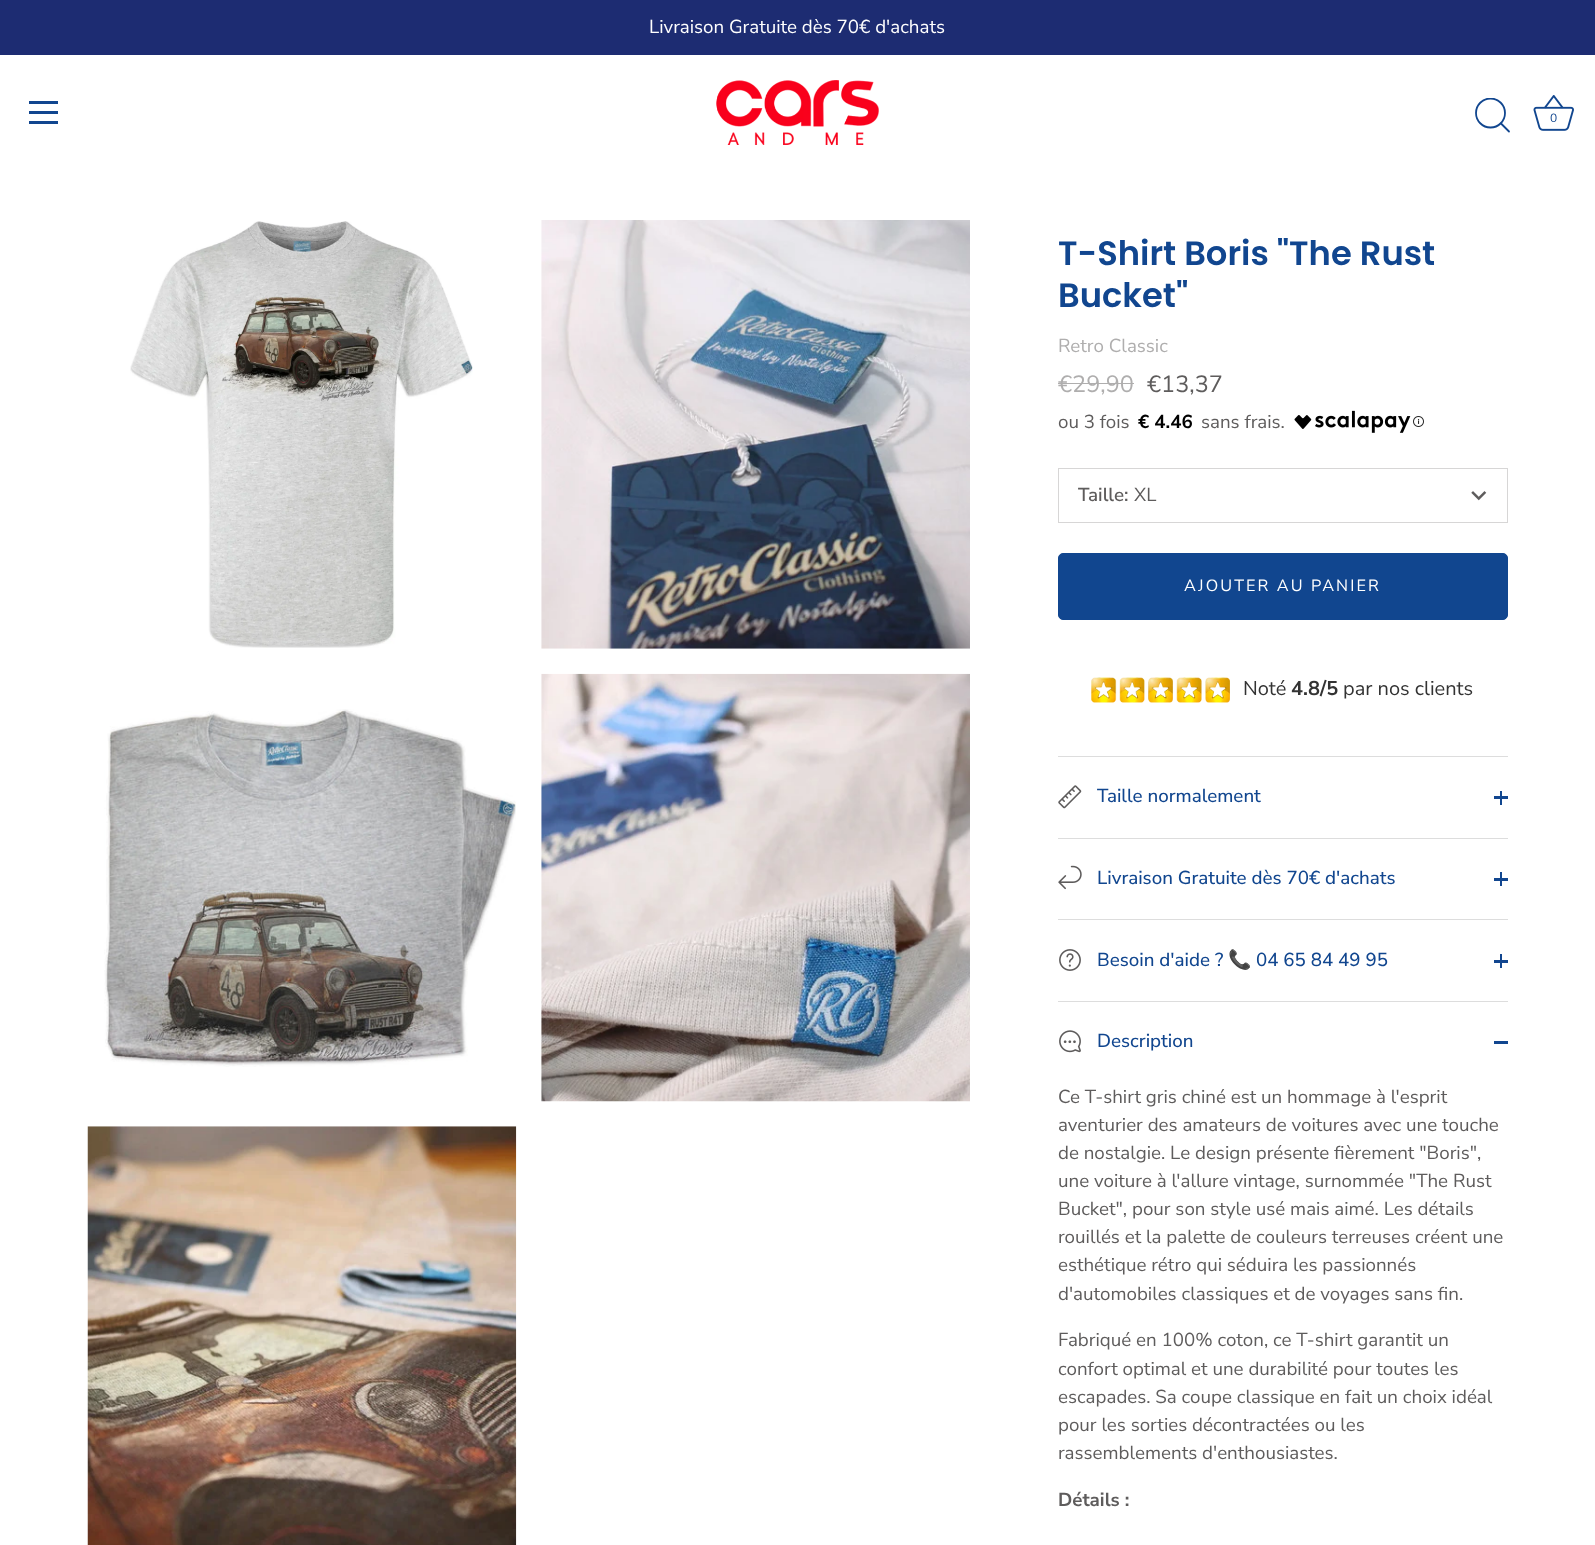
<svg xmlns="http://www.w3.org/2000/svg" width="1595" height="1545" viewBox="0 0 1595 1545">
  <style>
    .t1 { font: 18.75px Nunito Sans; fill: #fff; }
    .t2 { font: 12px Nunito Sans; fill: #11468f; }
    .t3 { font: 600 33.75px Poppins; fill: #11468f; }
    .t4 { font: 18.75px Nunito Sans; fill: #afaeae; }
    .t5 { font: 23.5px Nunito Sans; fill: #afaeae; }
    .t6 { font: 23.5px Nunito Sans; fill: #5e5c5c; }
    .t7 { font: 18.75px Nunito Sans; fill: #5e5c5c; }
    .t8 { font: bold 18.75px Nunito Sans; fill: #000; }
    .t9 { font: 600 18.75px Nunito Sans; fill: #5e5c5c; }
    .t10 { font: 16.25px Nunito Sans; letter-spacing: 2.1px; fill: #fff; }
    .t11 { font: 20px Nunito Sans; fill: #333; }
    .t12 { font: bold 20px Nunito Sans; fill: #333; }
    .t13 { font: 500 18.75px Nunito Sans; fill: #11468f; }
    .t14 { font: 18.75px Noto Color Emoji; fill: #11468f; }
    .t15 { font: bold 18.75px Nunito Sans; fill: #5e5c5c; }
  </style>
  <defs>
    <clipPath id="clip1"><rect x="1475" y="98" width="36" height="36"/></clipPath>
  </defs>
  <rect width="100%" height="100%" fill="#fff"/>
  <rect x="0" y="0" width="1595" height="55" fill="#1d2c72"/>
  <text x="649" y="33" class="t1">Livraison Gratuite dès 70€ d'achats</text>
  <rect x="29" y="101" width="29" height="3" fill="#11468f"/>
  <rect x="29" y="111" width="29" height="3" fill="#11468f"/>
  <rect x="29" y="121" width="29" height="3" fill="#11468f"/>
  <image x="716" y="80" width="163" height="65" href="images/1.png"/>
  <g clip-path="url(#clip1)">
    <circle cx="1490.5" cy="113" r="14.5" fill="none" stroke="#11468f" stroke-width="1.8"/>
  </g>
  <path d="M1509 131.5L1501 123.5" fill="none" stroke="#11468f" stroke-width="1.8" stroke-linecap="round" stroke-linejoin="round"/>
  <image x="1533" y="95" width="41" height="36" href="images/2.png"/>
  <text x="1550" y="122" class="t2">0</text>
  <image x="130" y="221" width="343" height="427" href="images/3.png"/>
  <image x="104" y="709" width="412" height="358" href="images/4.png"/>
  <image x="87" y="1126" width="430" height="419" href="images/5.png"/>
  <image x="541" y="220" width="429" height="429" href="images/6.png"/>
  <image x="541" y="673" width="429" height="429" href="images/7.png"/>
  <text x="1058" y="265" class="t3">T-Shirt Boris "The Rust</text>
  <text x="1058" y="307" class="t3">Bucket"</text>
  <text x="1058" y="352" class="t4">Retro Classic</text>
  <text x="1058" y="392" class="t5">€29,90</text>
  <rect x="1058" y="383" width="76" height="1" fill="#afaeae"/>
  <text x="1147" y="392" class="t6">€13,37</text>
  <text x="1058" y="428" class="t7">ou 3 fois</text>
  <text x="1138" y="428" class="t8">€ 4.46</text>
  <text x="1201" y="428" class="t7">sans frais.</text>
  <image x="1294" y="410" width="117" height="23" href="images/8.png"/>
  <image x="1413" y="416" width="11" height="11" href="images/9.png"/>
  <rect x="1058.5" y="468.5" width="449" height="54" fill="none" stroke="#d7d6d6"/>
  <text x="1078" y="501" class="t9">Taille:</text>
  <text x="1134" y="501" class="t7">XL</text>
  <image x="1471" y="491" width="16" height="10" href="images/10.png"/>
  <rect x="1058.5" y="553.5" width="449" height="66" rx="4.5" fill="#11468f" stroke="#11468f"/>
  <text x="1184" y="591" class="t10">AJOUTER AU PANIER</text>
  <image x="1091" y="677" width="139" height="26" href="images/11.png"/>
  <text x="1243" y="695" class="t11">Noté</text>
  <text x="1291" y="695" class="t12">4.8/5</text>
  <text x="1343" y="695" class="t11">par nos clients</text>
  <rect x="1058" y="756" width="450" height="1" fill="#ddd"/>
  <rect x="1058" y="838" width="450" height="1" fill="#ddd"/>
  <image x="1058" y="785" width="24" height="24" href="images/12.png"/>
  <text x="1097" y="802" class="t13">Taille normalement</text>
  <rect x="1500" y="791" width="2" height="14" fill="#11468f"/>
  <rect x="1494" y="796" width="14" height="3" fill="#11468f"/>
  <rect x="1058" y="919" width="450" height="1" fill="#ddd"/>
  <image x="1058" y="865" width="24" height="25" href="images/13.png"/>
  <text x="1097" y="884" class="t13">Livraison Gratuite dès 70€ d'achats</text>
  <rect x="1500" y="872" width="2" height="14" fill="#11468f"/>
  <rect x="1494" y="878" width="14" height="3" fill="#11468f"/>
  <rect x="1058" y="1001" width="450" height="1" fill="#ddd"/>
  <image x="1059" y="949" width="22" height="22" href="images/14.png"/>
  <text x="1097" y="966" class="t13">Besoin d'aide ?</text>
  <text x="1228" y="966" class="t14">📞</text>
  <text x="1256" y="966" class="t13">04 65 84 49 95</text>
  <rect x="1500" y="954" width="2" height="14" fill="#11468f"/>
  <rect x="1494" y="960" width="14" height="3" fill="#11468f"/>
  <image x="1059" y="1030" width="22" height="23" href="images/15.png"/>
  <text x="1097" y="1047" class="t13">Description</text>
  <rect x="1494" y="1041" width="14" height="3" fill="#11468f"/>
  <text x="1058" y="1103" class="t7">Ce T-shirt gris chiné est un hommage à l'esprit</text>
  <text x="1058" y="1131" class="t7">aventurier des amateurs de voitures avec une touche</text>
  <text x="1058" y="1159" class="t7">de nostalgie. Le design présente fièrement "Boris",</text>
  <text x="1058" y="1187" class="t7">une voiture à l'allure vintage, surnommée "The Rust</text>
  <text x="1058" y="1215" class="t7">Bucket", pour son style usé mais aimé. Les détails</text>
  <text x="1058" y="1243" class="t7">rouillés et la palette de couleurs terreuses créent une</text>
  <text x="1058" y="1271" class="t7">esthétique rétro qui séduira les passionnés</text>
  <text x="1058" y="1300" class="t7">d'automobiles classiques et de voyages sans fin.</text>
  <text x="1058" y="1346" class="t7">Fabriqué en 100% coton, ce T-shirt garantit un</text>
  <text x="1058" y="1375" class="t7">confort optimal et une durabilité pour toutes les</text>
  <text x="1058" y="1403" class="t7">escapades. Sa coupe classique en fait un choix idéal</text>
  <text x="1058" y="1431" class="t7">pour les sorties décontractées ou les</text>
  <text x="1058" y="1459" class="t7">rassemblements d'enthousiastes.</text>
  <text x="1058" y="1506" class="t15">Détails :</text>
</svg>
